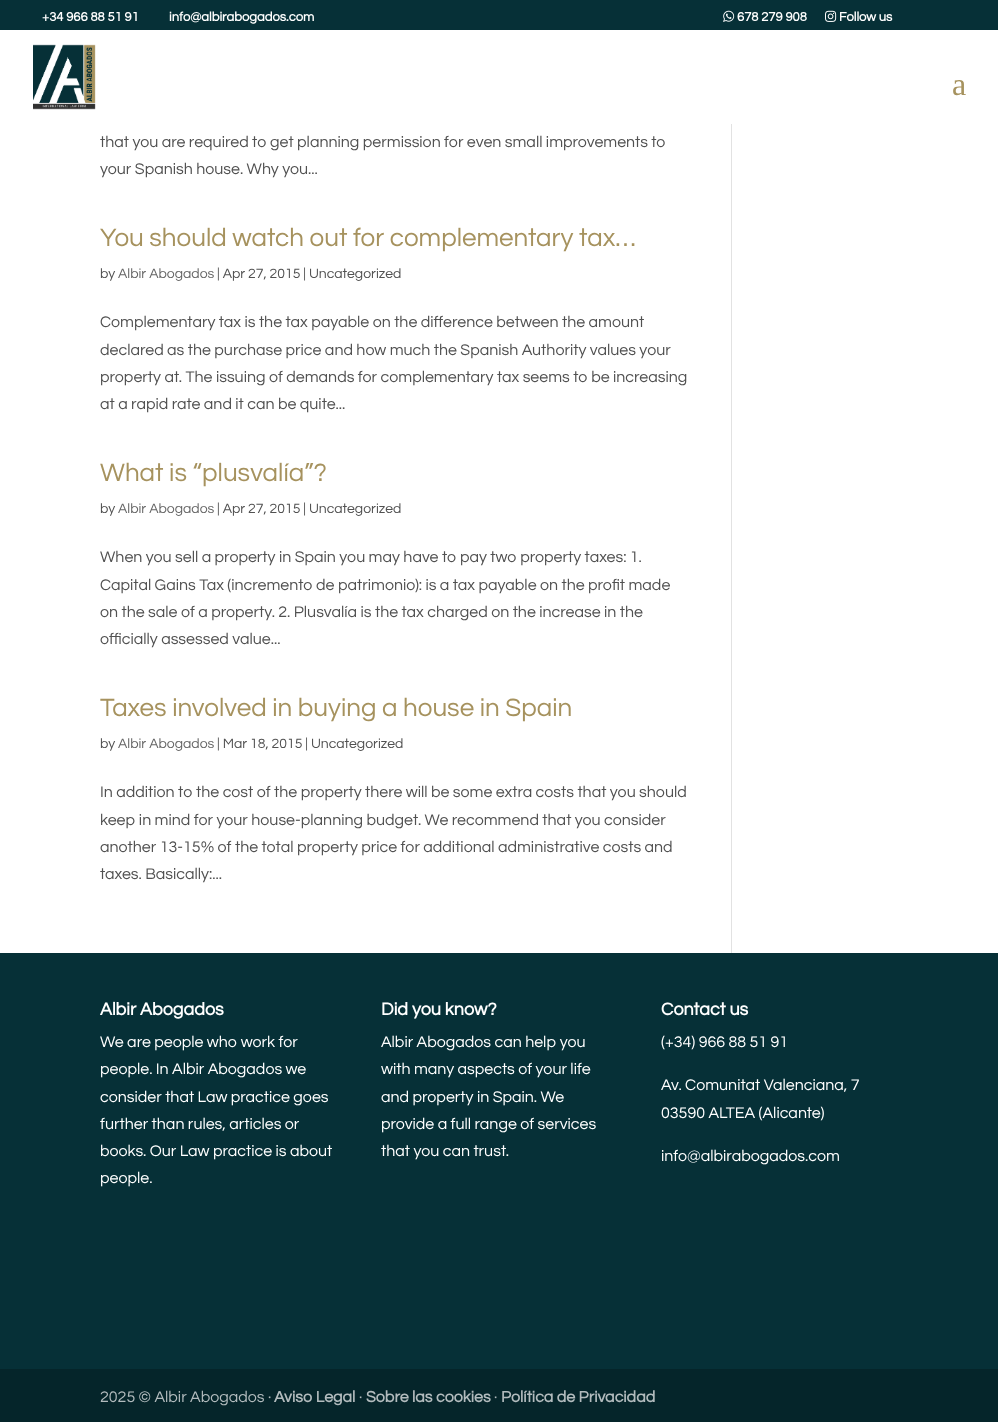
<svg xmlns="http://www.w3.org/2000/svg" width="998" height="1422" viewBox="0 0 998 1422">
  <style>
    .t1 { font: bold 13px Questrial; fill: #fff; }
    .t2 { font: 32px Liberation Serif; fill: #a6925e; }
    .t3 { font: 16px Questrial; fill: #515151; }
    .t4 { font: 26px Questrial; fill: #a6925e; }
    .t5 { font: 14px Questrial; fill: #515151; }
    .t6 { font: 14px Questrial; fill: #666; }
    .t7 { font: bold 18px Questrial; fill: #fff; }
    .t8 { font: 16px Questrial; fill: #fff; }
    .t9 { font: 16px Questrial; fill: #b2bbbd; }
    .t10 { font: bold 16px Questrial; fill: #b2bbbd; }
  </style>
  <rect width="100%" height="100%" fill="#fff"/>
  <rect x="0" y="0" width="998" height="30" fill="#063037"/>
  <text x="42" y="21" class="t1">+34 966 88 51 91</text>
  <text x="169" y="21" class="t1">info@albirabogados.com</text>
  <image x="723" y="10" width="12" height="12" href="images/1.png"/>
  <text x="737" y="21" class="t1">678 279 908</text>
  <image x="825" y="10" width="12" height="12" href="images/2.png"/>
  <text x="839" y="21" class="t1">Follow us</text>
  <image x="33" y="44" width="63" height="66" href="images/3.png"/>
  <text x="952" y="95" class="t2">a</text>
  <text x="100" y="147" class="t3">that you are required to get planning permission for even small improvements to</text>
  <text x="100" y="174" class="t3">your Spanish house. Why you...</text>
  <text x="100" y="246" class="t4">You should watch out for complementary tax…</text>
  <text x="100" y="278" class="t5">by</text>
  <text x="118" y="278" class="t6">Albir Abogados</text>
  <text x="217" y="278" class="t5">| Apr 27, 2015 | Uncategorized</text>
  <text x="100" y="327" class="t3">Complementary tax is the tax payable on the difference between the amount</text>
  <text x="100" y="355" class="t3">declared as the purchase price and how much the Spanish Authority values your</text>
  <text x="100" y="382" class="t3">property at. The issuing of demands for complementary tax seems to be increasing</text>
  <text x="100" y="409" class="t3">at a rapid rate and it can be quite...</text>
  <text x="100" y="481" class="t4">What is “plusvalía”?</text>
  <text x="100" y="513" class="t5">by</text>
  <text x="118" y="513" class="t6">Albir Abogados</text>
  <text x="217" y="513" class="t5">| Apr 27, 2015 | Uncategorized</text>
  <text x="100" y="562" class="t3">When you sell a property in Spain you may have to pay two property taxes: 1.</text>
  <text x="100" y="590" class="t3">Capital Gains Tax (incremento de patrimonio): is a tax payable on the profit made</text>
  <text x="100" y="617" class="t3">on the sale of a property. 2. Plusvalía is the tax charged on the increase in the</text>
  <text x="100" y="644" class="t3">officially assessed value...</text>
  <text x="100" y="716" class="t4">Taxes involved in buying a house in Spain</text>
  <text x="100" y="748" class="t5">by</text>
  <text x="118" y="748" class="t6">Albir Abogados</text>
  <text x="217" y="748" class="t5">| Mar 18, 2015 | Uncategorized</text>
  <text x="100" y="797" class="t3">In addition to the cost of the property there will be some extra costs that you should</text>
  <text x="100" y="825" class="t3">keep in mind for your house-planning budget. We recommend that you consider</text>
  <text x="100" y="852" class="t3">another 13-15% of the total property price for additional administrative costs and</text>
  <text x="100" y="879" class="t3">taxes. Basically:...</text>
  <rect x="731" y="124" width="1" height="829" fill="#e2e2e2"/>
  <rect x="0" y="953" width="998" height="416" fill="#063037"/>
  <text x="100" y="1015" class="t7">Albir Abogados</text>
  <text x="100" y="1047" class="t8">We are people who work for</text>
  <text x="100" y="1074" class="t8">people. In Albir Abogados we</text>
  <text x="100" y="1102" class="t8">consider that Law practice goes</text>
  <text x="100" y="1129" class="t8">further than rules, articles or</text>
  <text x="100" y="1156" class="t8">books. Our Law practice is about</text>
  <text x="100" y="1183" class="t8">people.</text>
  <text x="381" y="1015" class="t7">Did you know?</text>
  <text x="381" y="1047" class="t8">Albir Abogados can help you</text>
  <text x="381" y="1074" class="t8">with many aspects of your life</text>
  <text x="381" y="1102" class="t8">and property in Spain. We</text>
  <text x="381" y="1129" class="t8">provide a full range of services</text>
  <text x="381" y="1156" class="t8">that you can trust.</text>
  <text x="661" y="1015" class="t7">Contact us</text>
  <text x="661" y="1047" class="t8">(+34) 966 88 51 91</text>
  <text x="661" y="1090" class="t8">Av. Comunitat Valenciana, 7</text>
  <text x="661" y="1118" class="t8">03590 ALTEA (Alicante)</text>
  <text x="661" y="1161" class="t8">info@albirabogados.com</text>
  <rect x="0" y="1369" width="998" height="53" fill="#05252a"/>
  <text x="100" y="1402" class="t9">2025 © Albir Abogados ·</text>
  <text x="274" y="1402" class="t10">Aviso Legal</text>
  <text x="359" y="1402" class="t9">·</text>
  <text x="366" y="1402" class="t10">Sobre las cookies</text>
  <text x="494" y="1402" class="t9">·</text>
  <text x="501" y="1402" class="t10">Política de Privacidad</text>
</svg>
